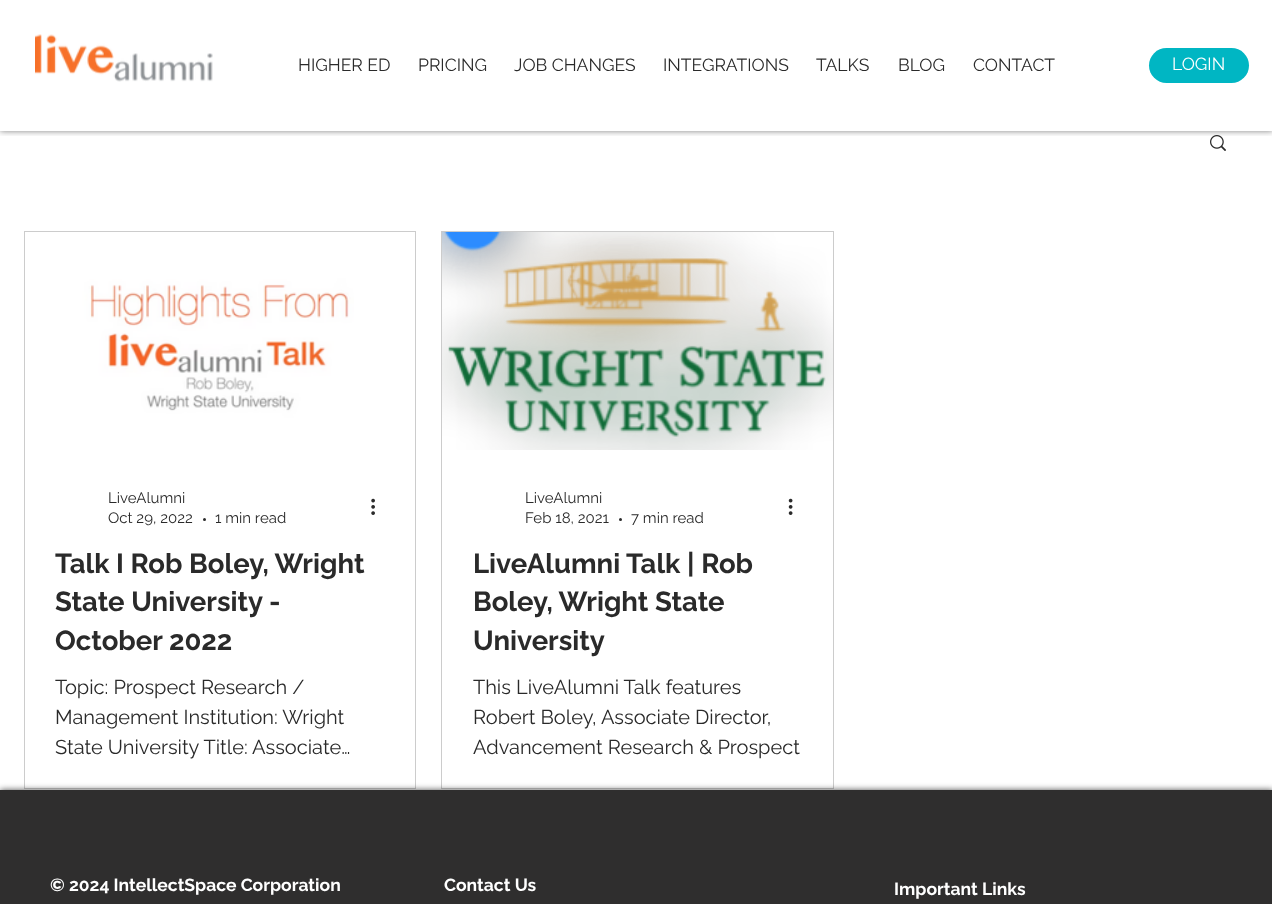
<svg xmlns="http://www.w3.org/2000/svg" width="1272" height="904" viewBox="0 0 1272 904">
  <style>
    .t1 { font: 17.5px Raleway; fill: #2a2a2a; }
    .t2 { font: 17.5px Raleway; fill: #fff; }
    .t3 { font: 15px Raleway; fill: #2a2a2a; }
    .t4 { font: bold 27.5px Raleway; fill: #2a2a2a; }
    .t5 { font: 20px Raleway; fill: #2a2a2a; }
    .t6 { font: bold 17.5px Raleway; fill: #fff; }
  </style>
  <defs>
    <clipPath id="clip1"><rect x="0" y="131" width="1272" height="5"/></clipPath>
  </defs>
  <rect width="100%" height="100%" fill="#fff"/>
  <image x="1210" y="135" width="16" height="16" href="images/2.png"/>
  <g clip-path="url(#clip1)">
    <rect x="0" y="0" width="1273" height="131" fill="#00000080" filter="blur(3px)"/>
  </g>
  <image x="35" y="34" width="178" height="48" href="images/1.png"/>
  <text x="298" y="71" class="t1">HIGHER ED</text>
  <text x="418" y="71" class="t1">PRICING</text>
  <text x="514" y="71" class="t1">JOB CHANGES</text>
  <text x="663" y="71" class="t1">INTEGRATIONS</text>
  <text x="816" y="71" class="t1">TALKS</text>
  <text x="898" y="71" class="t1">BLOG</text>
  <text x="973" y="71" class="t1">CONTACT</text>
  <rect x="1149" y="48" width="100" height="35" rx="17.5" fill="#00b6c3"/>
  <text x="1172" y="70" class="t2">LOGIN</text>
  <rect x="24.5" y="231.5" width="391" height="557" fill="none" stroke="#ccc"/>
  <image x="75" y="266" width="279" height="159" href="images/3.png"/>
  <text x="108" y="503" class="t3">LiveAlumni</text>
  <text x="108" y="523" class="t3">Oct 29, 2022</text>
  <circle cx="204.5" cy="519.5" r="1.5" fill="#2a2a2a"/>
  <text x="215" y="523" class="t3">1 min read</text>
  <image x="371" y="498" width="4" height="17" href="images/4.png"/>
  <text x="55" y="573" class="t4">Talk I Rob Boley, Wright</text>
  <text x="55" y="611" class="t4">State University -</text>
  <text x="55" y="650" class="t4">October 2022</text>
  <text x="55" y="694" class="t5">Topic: Prospect Research /</text>
  <text x="55" y="724" class="t5">Management Institution: Wright</text>
  <text x="55" y="754" class="t5">State University Title: Associate…</text>
  <rect x="441.5" y="231.5" width="392" height="557" fill="none" stroke="#ccc"/>
  <image x="442" y="232" width="391" height="218" href="images/5.png"/>
  <image x="444" y="232" width="382" height="205" href="images/6.png"/>
  <text x="525" y="503" class="t3">LiveAlumni</text>
  <text x="525" y="523" class="t3">Feb 18, 2021</text>
  <circle cx="620.5" cy="519.5" r="1.5" fill="#2a2a2a"/>
  <text x="631" y="523" class="t3">7 min read</text>
  <image x="788" y="498" width="5" height="17" href="images/7.png"/>
  <text x="473" y="573" class="t4">LiveAlumni Talk | Rob</text>
  <text x="473" y="611" class="t4">Boley, Wright State</text>
  <text x="473" y="650" class="t4">University</text>
  <text x="473" y="694" class="t5">This LiveAlumni Talk features</text>
  <text x="473" y="724" class="t5">Robert Boley, Associate Director,</text>
  <text x="473" y="754" class="t5">Advancement Research &amp; Prospect</text>
  <rect x="0" y="790" width="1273" height="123" fill="#000000b3" filter="blur(3px)"/>
  <rect x="0" y="790" width="1272" height="114" fill="#2f2e2e"/>
  <text x="50" y="891" class="t6">© 2024 IntellectSpace Corporation</text>
  <text x="444" y="891" class="t6">Contact Us</text>
  <text x="894" y="895" class="t6">Important Links</text>
</svg>
